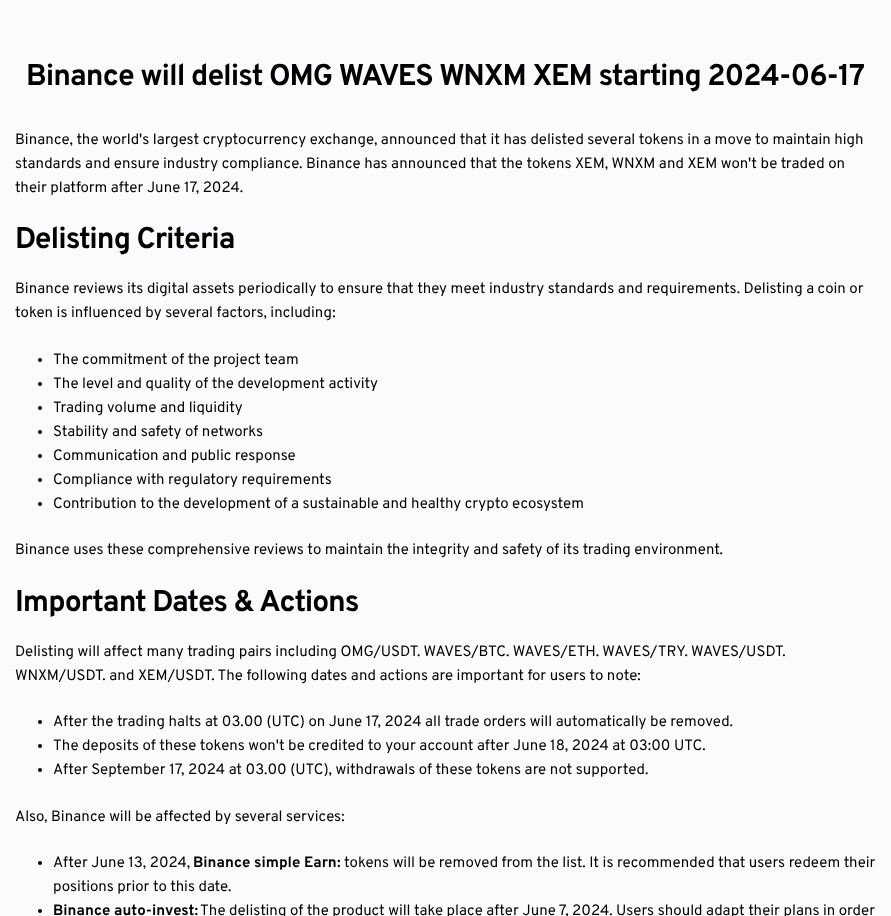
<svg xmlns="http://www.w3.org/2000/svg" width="891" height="916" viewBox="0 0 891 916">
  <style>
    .t1 { font: bold 30px Overpass; letter-spacing: -1px; fill: #000; }
    .t2 { font: 15px Overpass; fill: #000; }
    .t3 { font: bold 15px Overpass; fill: #000; }
  </style>
  <rect width="100%" height="100%" fill="#fafbfc"/>
  <text x="26" y="85" class="t1">Binance will delist OMG WAVES WNXM XEM starting 2024-06-17</text>
  <text x="15" y="144" class="t2">Binance, the world's largest cryptocurrency exchange, announced that it has delisted several tokens in a move to maintain high</text>
  <text x="15" y="168" class="t2">standards and ensure industry compliance. Binance has announced that the tokens XEM, WNXM and XEM won't be traded on</text>
  <text x="15" y="192" class="t2">their platform after June 17, 2024.</text>
  <text x="15" y="248" class="t1">Delisting Criteria</text>
  <text x="15" y="293" class="t2">Binance reviews its digital assets periodically to ensure that they meet industry standards and requirements. Delisting a coin or</text>
  <text x="15" y="317" class="t2">token is influenced by several factors, including:</text>
  <circle cx="40" cy="360" r="2" fill="#000"/>
  <text x="53" y="364" class="t2">The commitment of the project team</text>
  <circle cx="40" cy="384" r="2" fill="#000"/>
  <text x="53" y="388" class="t2">The level and quality of the development activity</text>
  <circle cx="40" cy="408" r="2" fill="#000"/>
  <text x="53" y="412" class="t2">Trading volume and liquidity</text>
  <circle cx="40" cy="432" r="2" fill="#000"/>
  <text x="53" y="436" class="t2">Stability and safety of networks</text>
  <circle cx="40" cy="456" r="2" fill="#000"/>
  <text x="53" y="460" class="t2">Communication and public response</text>
  <circle cx="40" cy="480" r="2" fill="#000"/>
  <text x="53" y="484" class="t2">Compliance with regulatory requirements</text>
  <circle cx="40" cy="504" r="2" fill="#000"/>
  <text x="53" y="508" class="t2">Contribution to the development of a sustainable and healthy crypto ecosystem</text>
  <text x="15" y="554" class="t2">Binance uses these comprehensive reviews to maintain the integrity and safety of its trading environment.</text>
  <text x="15" y="611" class="t1">Important Dates &amp; Actions</text>
  <text x="15" y="656" class="t2">Delisting will affect many trading pairs including OMG/USDT. WAVES/BTC. WAVES/ETH. WAVES/TRY. WAVES/USDT.</text>
  <text x="15" y="680" class="t2">WNXM/USDT. and XEM/USDT. The following dates and actions are important for users to note:</text>
  <circle cx="40" cy="722" r="2" fill="#000"/>
  <text x="53" y="726" class="t2">After the trading halts at 03.00 (UTC) on June 17, 2024 all trade orders will automatically be removed.</text>
  <circle cx="40" cy="746" r="2" fill="#000"/>
  <text x="53" y="750" class="t2">The deposits of these tokens won't be credited to your account after June 18, 2024 at 03:00 UTC.</text>
  <circle cx="40" cy="770" r="2" fill="#000"/>
  <text x="53" y="774" class="t2">After September 17, 2024 at 03.00 (UTC), withdrawals of these tokens are not supported.</text>
  <text x="15" y="821" class="t2">Also, Binance will be affected by several services:</text>
  <circle cx="40" cy="863" r="2" fill="#000"/>
  <text x="53" y="867" class="t2">After June 13, 2024,</text>
  <text x="193" y="867" class="t3">Binance simple Earn:</text>
  <text x="344" y="867" class="t2">tokens will be removed from the list. It is recommended that users redeem their</text>
  <text x="53" y="891" class="t2">positions prior to this date.</text>
  <circle cx="40" cy="911" r="2" fill="#000"/>
  <text x="53" y="915" class="t3">Binance auto-invest:</text>
  <text x="200" y="915" class="t2">The delisting of the product will take place after June 7, 2024. Users should adapt their plans in order</text>
</svg>
